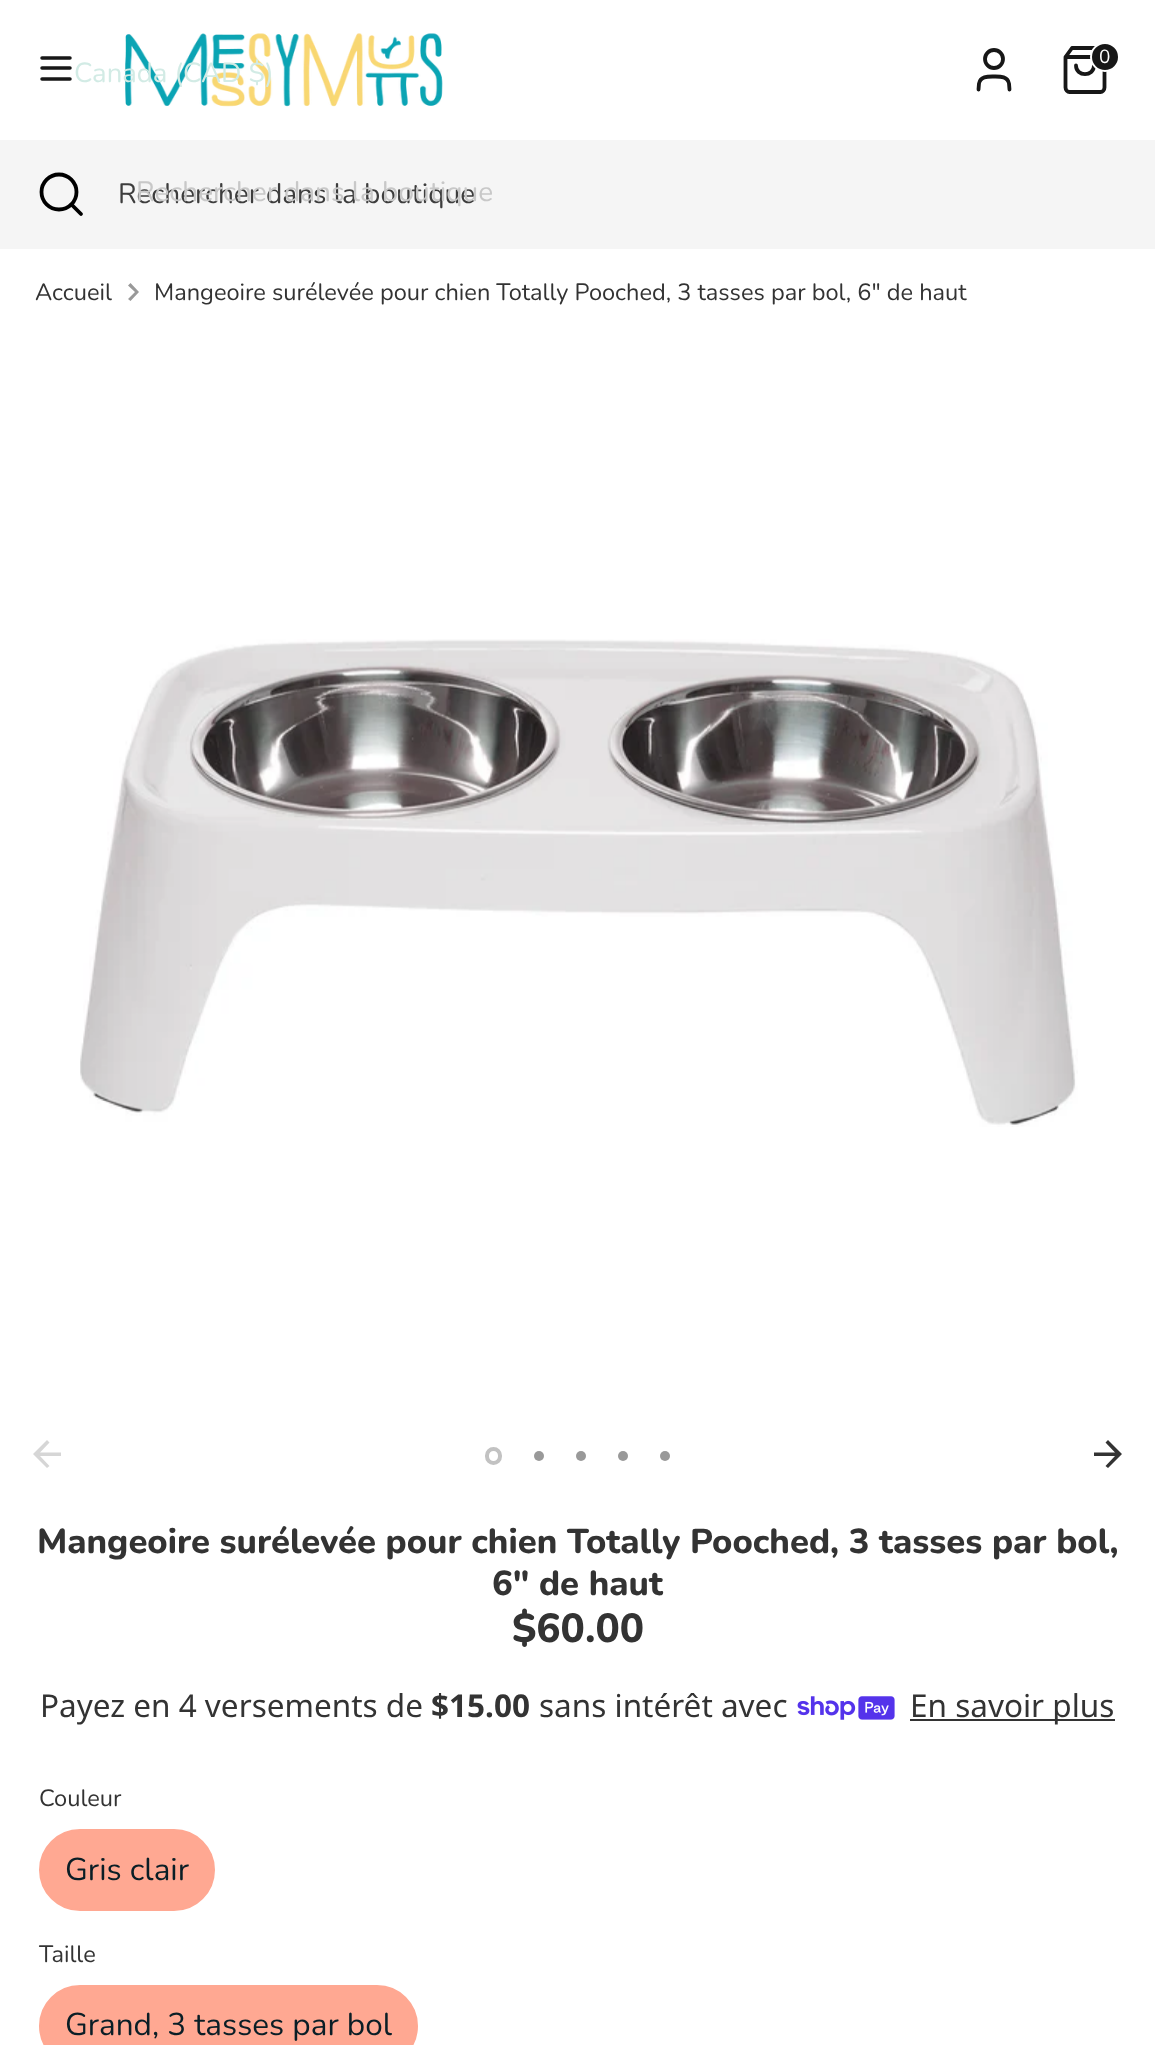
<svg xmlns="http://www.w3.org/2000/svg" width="1155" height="2045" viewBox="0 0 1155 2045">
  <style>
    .t1 { font: 19px Nunito; fill: #fff; }
    .t2 { font: 27.5px Nunito; fill: #d2ebe5; }
    .t3 { font: 28px Nunito; fill: #3d3d3d; }
    .t4 { font: 28px Nunito; fill: #c8c8c8; }
    .t5 { font: 23.6px Nunito; fill: #333; }
    .t6 { font: 800 34.6px Nunito; fill: #333; }
    .t7 { font: 800 40.5px Nunito; fill: #333; }
    .t8 { font: 31.5px Noto Sans; fill: #333; }
    .t9 { font: bold 31.5px Noto Sans; fill: #333; }
    .t10 { font: 31.5px Nunito; fill: #0a1e26; }
  </style>
  <rect width="100%" height="100%" fill="#fff"/>
  <path d="M42 68H70M42 58H70M42 79H70" fill="none" stroke="#171717" stroke-width="3.5" stroke-linecap="round" stroke-linejoin="round"/>
  <image x="125" y="33" width="318" height="74" href="images/1.png"/>
  <path d="M1009.5 89.5L1009 83.5C1007.5 76 1000 76.5 994 76.5C988 76.5 980.5 76 979 83.5L978.5 89.5" fill="none" stroke="#171717" stroke-width="3.8" stroke-linecap="round" stroke-linejoin="round"/>
  <circle cx="994" cy="59" r="9" fill="none" stroke="#171717" stroke-width="3.8"/>
  <path d="M1072 48L1065.5 57V87.5C1065.5 90 1067.5 92 1069.5 92H1100.5C1102.5 92 1104.5 90 1104.5 87.5V57L1098 48ZM1065.5 57H1104.5M1094 65.5C1094 77 1076 77 1076 65.5" fill="none" stroke="#171717" stroke-width="3.8" stroke-linecap="round" stroke-linejoin="round"/>
  <circle cx="1105" cy="57" r="14" fill="#171717" stroke="#fff" stroke-width="2"/>
  <text x="1099" y="63" class="t1">0</text>
  <text x="74" y="82" class="t2">Canada (CAD $)</text>
  <rect x="0" y="140" width="1155" height="109" fill="#f5f5f5"/>
  <text x="118" y="203" class="t3">Rechercher dans la boutique</text>
  <text x="136" y="201" class="t4">Rechercher dans la boutique</text>
  <circle cx="59" cy="192" r="17.5" fill="none" stroke="#000" stroke-width="3.8"/>
  <path d="M81 214L71.5 204.5" fill="none" stroke="#000" stroke-width="3.8" stroke-linecap="round" stroke-linejoin="round"/>
  <text x="35" y="300" class="t5">Accueil</text>
  <path d="M128 299L135 292L128 285.5L130.5 283L139 292L130.5 301Z" fill="#999"/>
  <text x="154" y="300" class="t5">Mangeoire surélevée pour chien Totally Pooched, 3 tasses par bol, 6" de haut</text>
  <image x="80" y="639" width="998" height="488" href="images/2.png"/>
  <path d="M61 1452.5H40L49.5 1442.5L47 1440L33 1454L47 1468L49.5 1466L40 1456H61Z" fill="#d6d6d6"/>
  <path d="M1108 1440L1105.5 1442.5L1115 1452.5H1094V1456H1115L1105.5 1466L1108 1468L1122 1454Z" fill="#333"/>
  <rect x="487" y="1449" width="13" height="14" rx="6.5" fill="none" stroke="#c2c2c2" stroke-width="4"/>
  <circle cx="539" cy="1456" r="5" fill="#999"/>
  <circle cx="581" cy="1456" r="5" fill="#999"/>
  <circle cx="623" cy="1456" r="5" fill="#999"/>
  <circle cx="665" cy="1456" r="5" fill="#999"/>
  <text x="37" y="1553" class="t6">Mangeoire surélevée pour chien Totally Pooched, 3 tasses par bol,</text>
  <text x="492" y="1595" class="t6">6" de haut</text>
  <text x="512" y="1642" class="t7">$60.00</text>
  <text x="40" y="1717" class="t8">Payez en 4 versements de</text>
  <text x="431" y="1717" class="t9">$15.00</text>
  <text x="539" y="1717" class="t8">sans intérêt avec</text>
  <image x="797" y="1696" width="98" height="24" href="images/3.png"/>
  <rect x="910" y="1719" width="205" height="2" fill="#333"/>
  <text x="910" y="1717" class="t8">En savoir plus</text>
  <text x="39" y="1806" class="t5">Couleur</text>
  <rect x="40" y="1830" width="174" height="80" rx="40" fill="#ffa892" stroke="#ffa892" stroke-width="2"/>
  <text x="65" y="1880" class="t10">Gris clair</text>
  <text x="39" y="1962" class="t5">Taille</text>
  <rect x="40" y="1986" width="377" height="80" rx="40" fill="#ffa892" stroke="#ffa892" stroke-width="2"/>
  <text x="65" y="2035" class="t10">Grand, 3 tasses par bol</text>
</svg>
